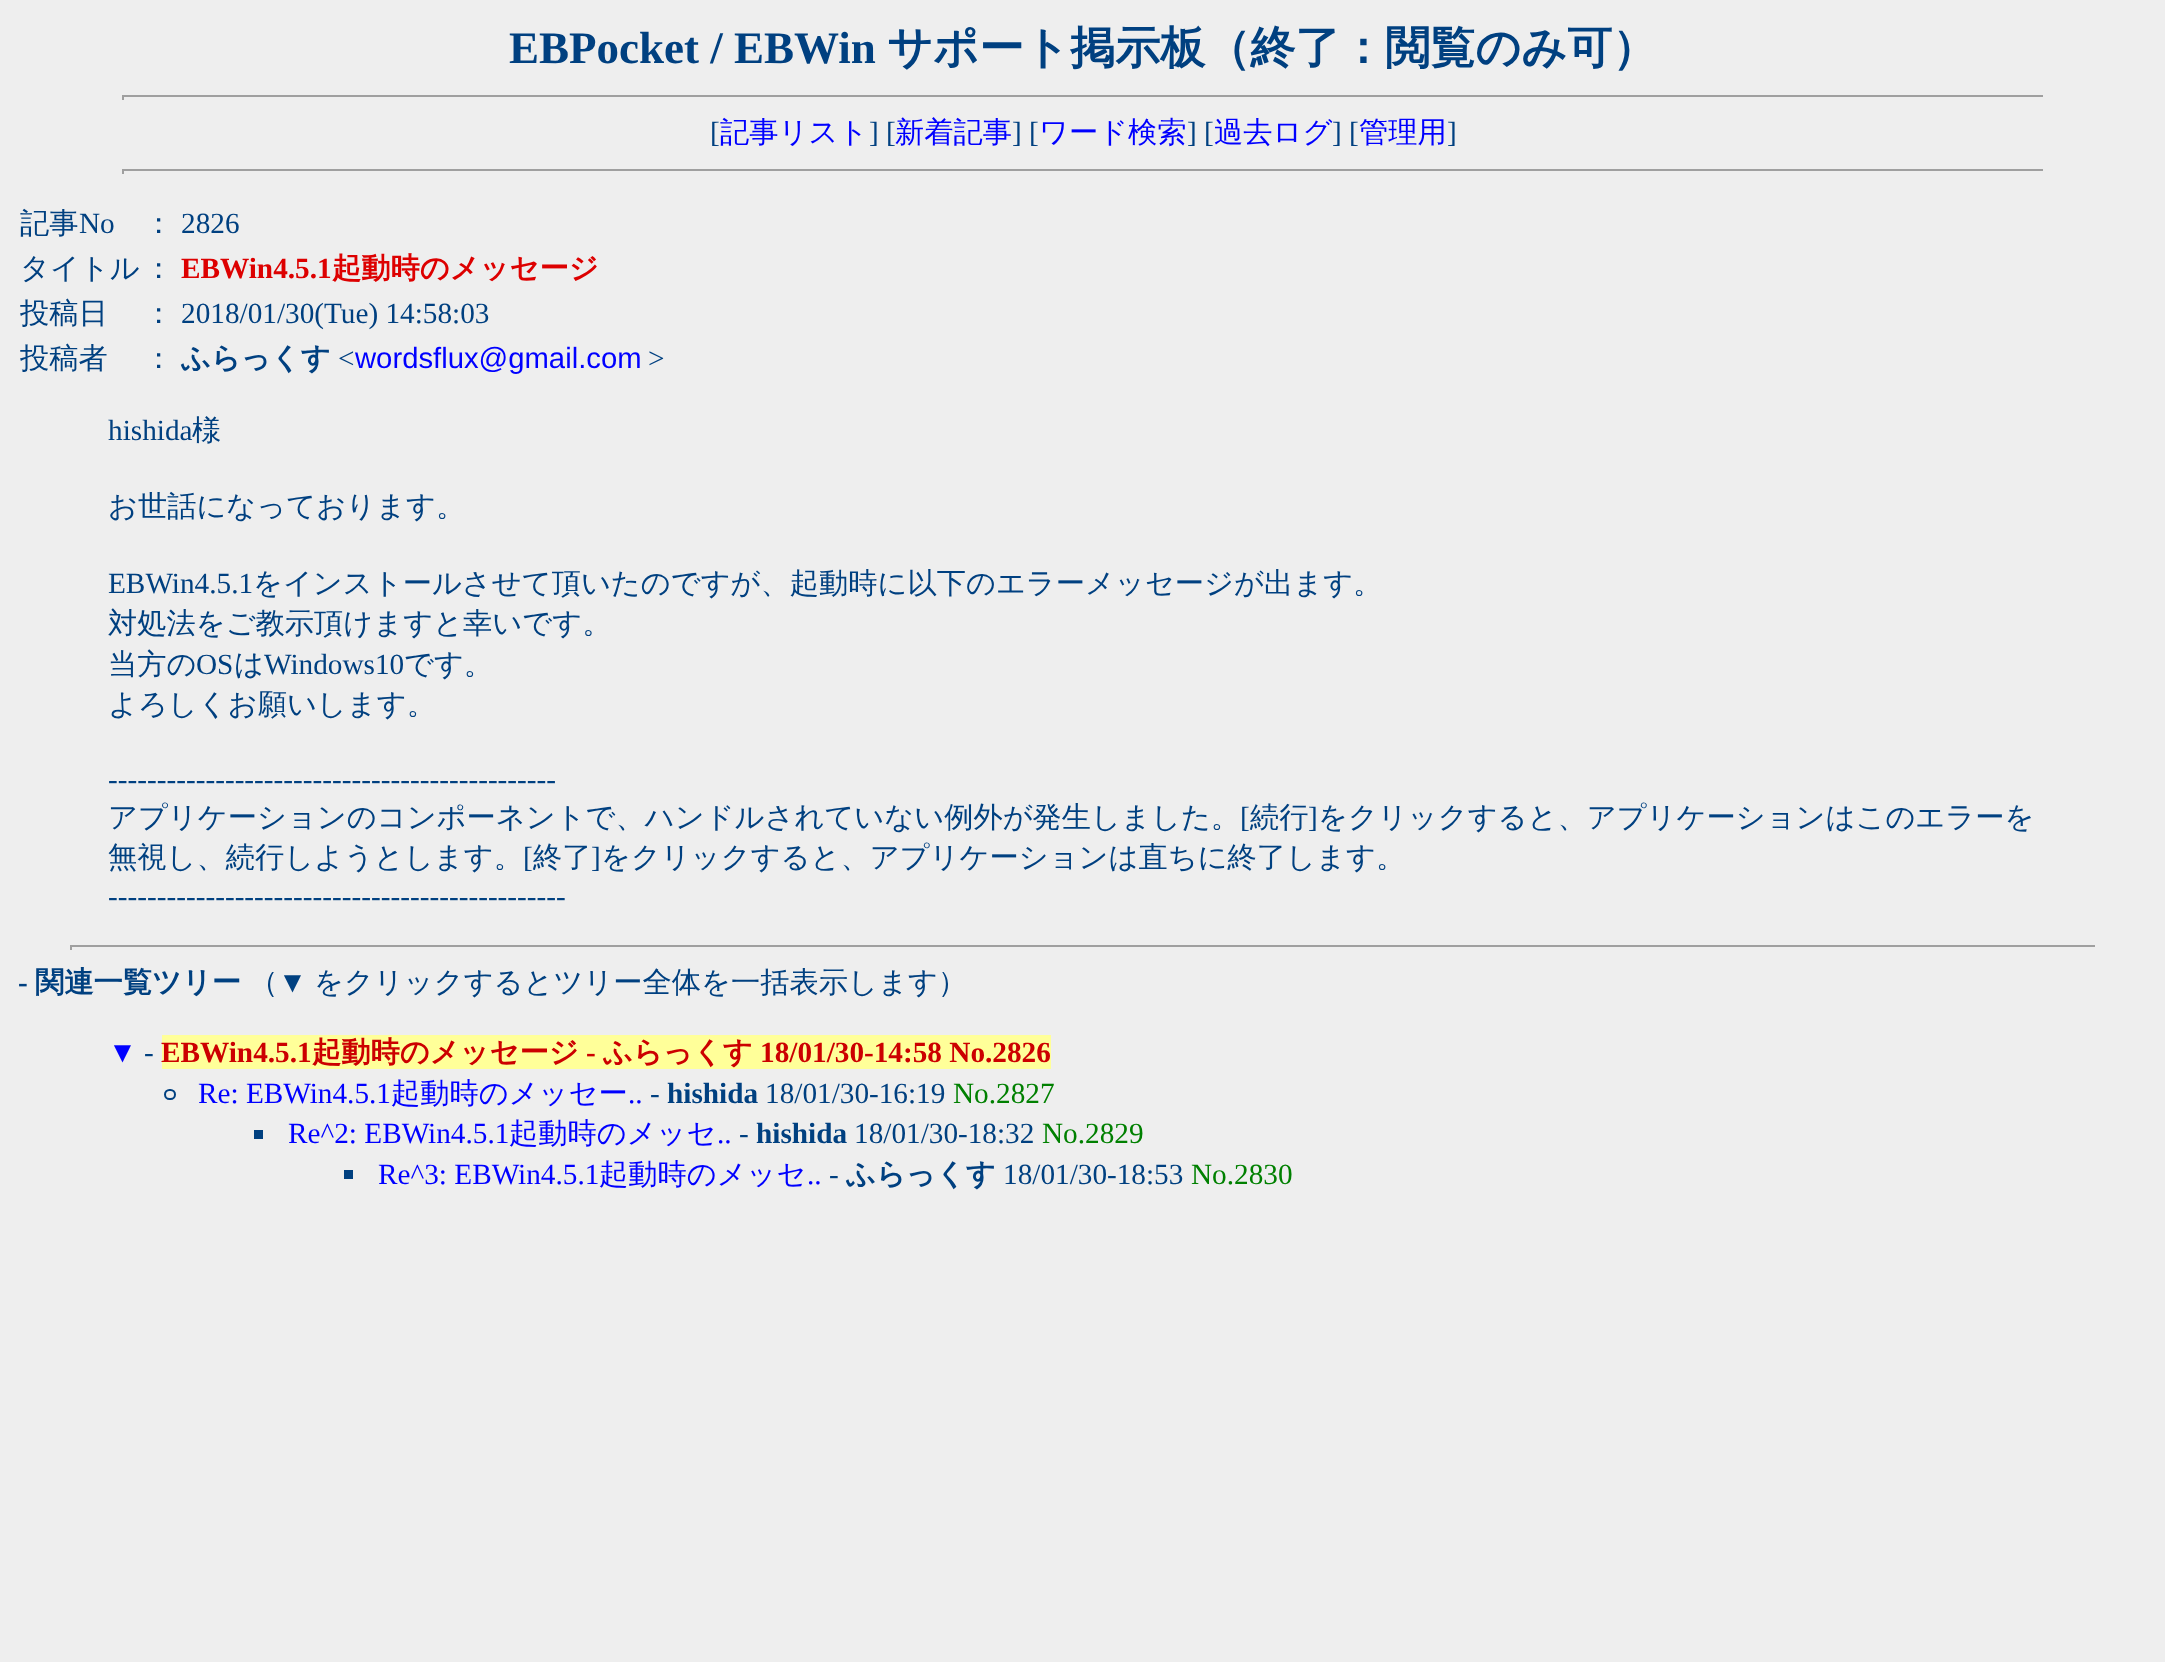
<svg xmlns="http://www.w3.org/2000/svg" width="2165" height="1662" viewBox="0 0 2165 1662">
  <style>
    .t1 { font: bold 45px Liberation Serif; fill: #004080; }
    .t2 { font: bold 45px WenQuanYi Zen Hei; fill: #004080; }
    .t3 { font: 29.25px Liberation Serif; fill: #004080; }
    .t4 { font: 500 29.25px WenQuanYi Zen Hei; fill: #00f; }
    .t5 { font: 500 29.25px WenQuanYi Zen Hei; fill: #004080; }
    .t6 { font: bold 29.25px Liberation Serif; fill: #d00; }
    .t7 { font: bold 29.25px WenQuanYi Zen Hei; fill: #d00; }
    .t8 { font: bold 29.25px WenQuanYi Zen Hei; fill: #004080; }
    .t9 { font: 29.25px Liberation Sans; fill: #00f; }
    .t10 { font: bold 29.25px Liberation Serif; fill: #004080; }
    .t11 { font: 29.25px Liberation Serif; fill: #00f; }
    .t12 { font: bold 29.25px Liberation Serif; fill: #c00; }
    .t13 { font: bold 29.25px WenQuanYi Zen Hei; fill: #c00; }
    .t14 { font: 29.25px Liberation Serif; fill: #008000; }
  </style>
  <rect width="100%" height="100%" fill="#eee"/>
  <text x="509" y="63" class="t1">EBPocket / EBWin</text>
  <text x="887" y="63" class="t2">サポート掲示板（終了：閲覧のみ可）</text>
  <rect x="122" y="95" width="1923" height="2" fill="#9f9f9f"/>
  <rect x="2043" y="95" width="2" height="5" fill="#eee"/>
  <rect x="122" y="95" width="2" height="5" fill="#9f9f9f"/>
  <text x="710" y="142" class="t3">[</text>
  <text x="720" y="142" class="t4">記事リスト</text>
  <text x="869" y="142" class="t3">] [</text>
  <text x="895" y="142" class="t4">新着記事</text>
  <text x="1012" y="142" class="t3">] [</text>
  <text x="1039" y="142" class="t4">ワード検索</text>
  <text x="1187" y="142" class="t3">] [</text>
  <text x="1214" y="142" class="t4">過去ログ</text>
  <text x="1332" y="142" class="t3">] [</text>
  <text x="1359" y="142" class="t4">管理用</text>
  <text x="1447" y="142" class="t3">]</text>
  <rect x="122" y="169" width="1923" height="2" fill="#9f9f9f"/>
  <rect x="2043" y="169" width="2" height="5" fill="#eee"/>
  <rect x="122" y="169" width="2" height="5" fill="#9f9f9f"/>
  <text x="20" y="233" class="t5">記事</text>
  <text x="79" y="233" class="t3">No</text>
  <text x="144" y="233" class="t5">：</text>
  <text x="181" y="233" class="t3">2826</text>
  <text x="20" y="278" class="t5">タイトル</text>
  <text x="144" y="278" class="t5">：</text>
  <text x="181" y="278" class="t6">EBWin4.5.1</text>
  <text x="332" y="278" class="t7">起動時のメッセージ</text>
  <text x="20" y="323" class="t5">投稿日</text>
  <text x="144" y="323" class="t5">：</text>
  <text x="181" y="323" class="t3">2018/01/30(Tue) 14:58:03</text>
  <text x="20" y="368" class="t5">投稿者</text>
  <text x="144" y="368" class="t5">：</text>
  <text x="181" y="368" class="t8">ふらっくす</text>
  <text x="338" y="368" class="t3">&lt;</text>
  <text x="355" y="368" class="t9">wordsflux@gmail.com</text>
  <text x="648" y="368" class="t3">&gt;</text>
  <text x="108" y="440" class="t3">hishida</text>
  <text x="192" y="440" class="t5">様</text>
  <text x="108" y="516" class="t5">お世話になっております。</text>
  <text x="108" y="593" class="t3">EBWin4.5.1</text>
  <text x="253" y="593" class="t5">をインストールさせて頂いたのですが、起動時に以下のエラーメッセージが出ます。</text>
  <text x="108" y="633" class="t5">対処法をご教示頂けますと幸いです。</text>
  <text x="108" y="674" class="t5">当方の</text>
  <text x="196" y="674" class="t3">OS</text>
  <text x="234" y="674" class="t5">は</text>
  <text x="264" y="674" class="t3">Windows10</text>
  <text x="404" y="674" class="t5">です。</text>
  <text x="108" y="714" class="t5">よろしくお願いします。</text>
  <text x="108" y="789" class="t3">----------------------------------------------</text>
  <text x="108" y="827" class="t5">アプリケーションのコンポーネントで、ハンドルされていない例外が発生しました。</text>
  <text x="1240" y="827" class="t3">[</text>
  <text x="1250" y="827" class="t5">続行</text>
  <text x="1308" y="827" class="t3">]</text>
  <text x="1318" y="827" class="t5">をクリックすると、アプリケーションはこのエラーを</text>
  <text x="108" y="867" class="t5">無視し、続行しようとします。</text>
  <text x="523" y="867" class="t3">[</text>
  <text x="533" y="867" class="t5">終了</text>
  <text x="591" y="867" class="t3">]</text>
  <text x="601" y="867" class="t5">をクリックすると、アプリケーションは直ちに終了します。</text>
  <text x="108" y="906" class="t3">-----------------------------------------------</text>
  <rect x="70" y="945" width="2027" height="2" fill="#9f9f9f"/>
  <rect x="2095" y="945" width="2" height="5" fill="#eee"/>
  <rect x="70" y="945" width="2" height="5" fill="#9f9f9f"/>
  <text x="18" y="992" class="t10">-</text>
  <text x="35" y="992" class="t8">関連一覧ツリー</text>
  <text x="249" y="992" class="t5">（</text>
  <text x="278" y="992" class="t3">▼</text>
  <text x="314" y="992" class="t5">をクリックするとツリー全体を一括表示します）</text>
  <text x="108" y="1062" class="t11">▼</text>
  <text x="144" y="1062" class="t3">-</text>
  <rect x="162" y="1035" width="889" height="34" fill="#ff9"/>
  <text x="161" y="1062" class="t12">EBWin4.5.1</text>
  <text x="312" y="1062" class="t13">起動時のメッセージ</text>
  <text x="586" y="1062" class="t12">-</text>
  <text x="603" y="1062" class="t13">ふらっくす</text>
  <text x="760" y="1062" class="t12">18/01/30-14:58 No.2826</text>
  <rect x="165" y="1090" width="10" height="9" rx="4.5" fill="none" stroke="#004080" stroke-width="2"/>
  <text x="198" y="1103" class="t11">Re: EBWin4.5.1</text>
  <text x="391" y="1103" class="t4">起動時のメッセー</text>
  <text x="650" y="1103" class="t3">-</text>
  <text x="667" y="1103" class="t10">hishida</text>
  <text x="765" y="1103" class="t3">18/01/30-16:19</text>
  <text x="953" y="1103" class="t14">No.2827</text>
  <text x="628" y="1103" class="t11">..</text>
  <rect x="254" y="1130" width="9" height="9" fill="#004080"/>
  <text x="288" y="1143" class="t11">Re^2: EBWin4.5.1</text>
  <text x="509" y="1143" class="t4">起動時のメッセ</text>
  <text x="739" y="1143" class="t3">-</text>
  <text x="756" y="1143" class="t10">hishida</text>
  <text x="854" y="1143" class="t3">18/01/30-18:32</text>
  <text x="1042" y="1143" class="t14">No.2829</text>
  <text x="717" y="1143" class="t11">..</text>
  <rect x="344" y="1170" width="9" height="9" fill="#004080"/>
  <text x="378" y="1184" class="t11">Re^3: EBWin4.5.1</text>
  <text x="599" y="1184" class="t4">起動時のメッセ</text>
  <text x="829" y="1184" class="t3">-</text>
  <text x="846" y="1184" class="t8">ふらっくす</text>
  <text x="1003" y="1184" class="t3">18/01/30-18:53</text>
  <text x="1191" y="1184" class="t14">No.2830</text>
  <text x="807" y="1184" class="t11">..</text>
</svg>
